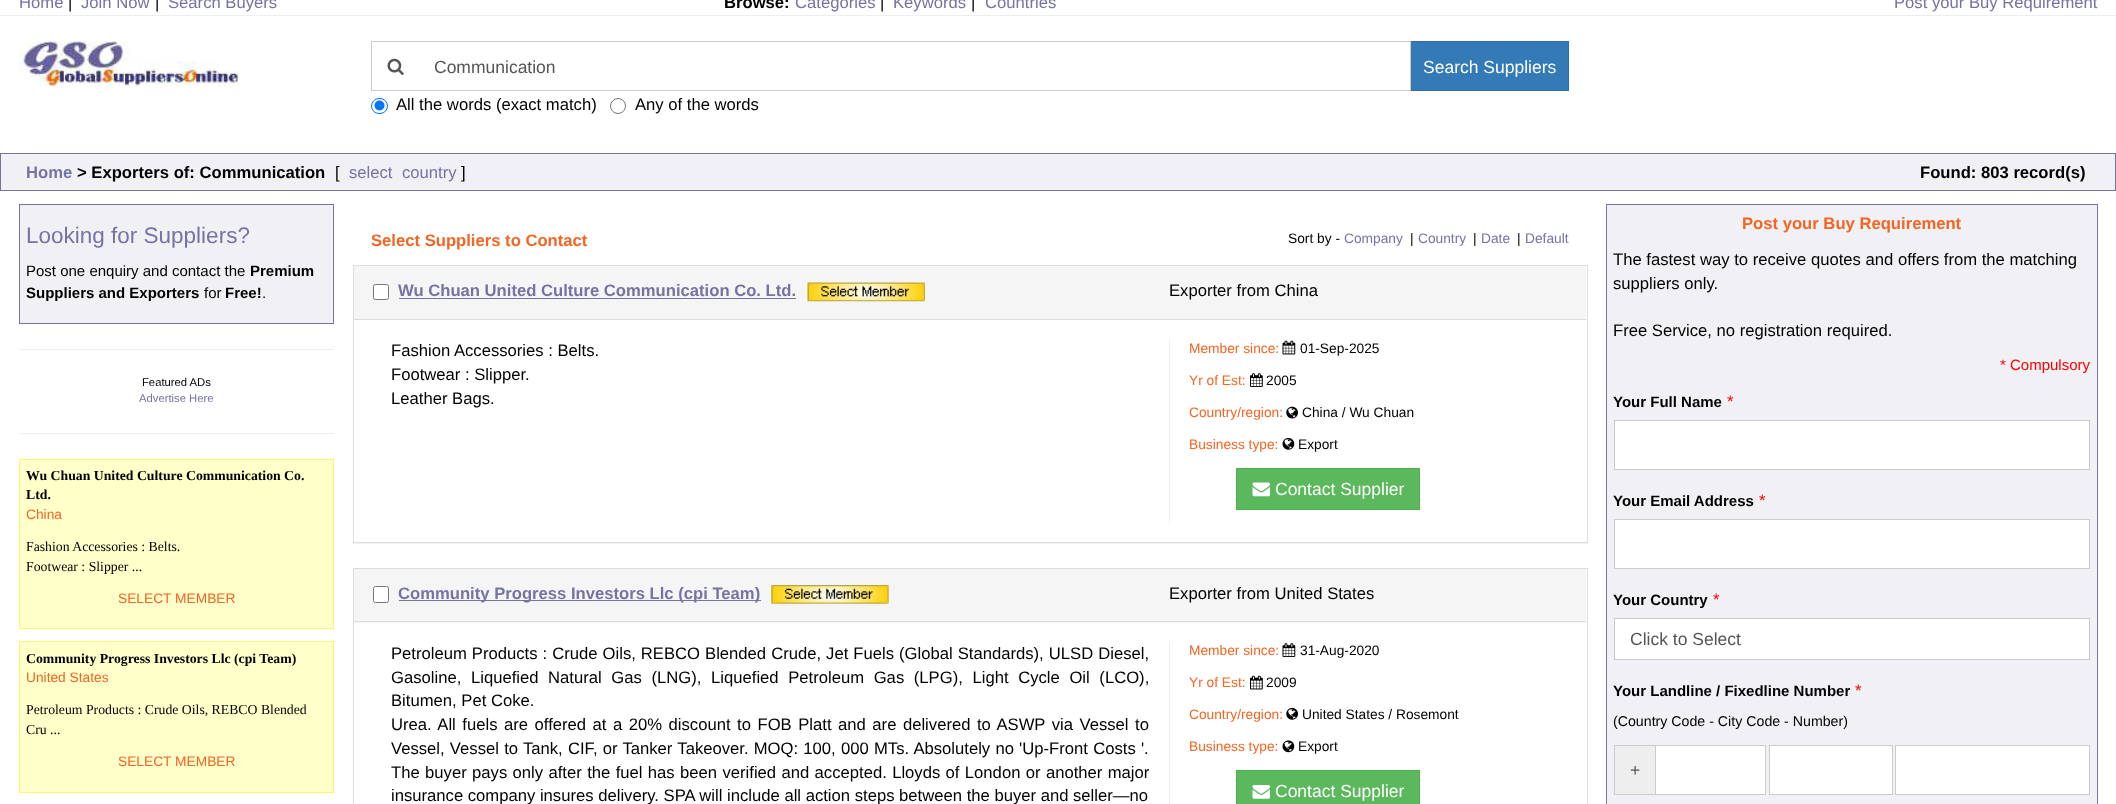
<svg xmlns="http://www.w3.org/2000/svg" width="2116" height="804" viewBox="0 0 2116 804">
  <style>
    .t1 { font: 16.65px Liberation Sans; fill: #7573a4; }
    .t2 { font: 16.65px Liberation Sans; fill: #000; }
    .t3 { font: bold 16.65px Liberation Sans; fill: #000; }
    .t4 { font: 17.5px Liberation Sans; fill: #555; }
    .t5 { font: 17.5px Liberation Sans; fill: #fff; }
    .t6 { font: bold 16.65px Liberation Sans; fill: #7573a4; }
    .t7 { font: 22.5px Liberation Sans; fill: #7573a4; }
    .t8 { font: 15px Liberation Sans; fill: #000; }
    .t9 { font: bold 15px Liberation Sans; fill: #000; }
    .t10 { font: 11.25px Liberation Sans; fill: #000; }
    .t11 { font: 11.25px Liberation Sans; fill: #7573a4; }
    .t12 { font: bold 13.75px Liberation Serif; fill: #000; }
    .t13 { font: 13.75px Liberation Sans; fill: #f26522; }
    .t14 { font: 13.75px Liberation Serif; fill: #000; }
    .t15 { font: bold 16.65px Liberation Sans; fill: #f26522; }
    .t16 { font: 13.75px Liberation Sans; fill: #000; }
    .t17 { font: 13.75px Liberation Sans; fill: #7573a4; }
    .t18 { font: 15px Liberation Sans; fill: #f00; }
    .t19 { font: 16.65px Liberation Sans; fill: #f00; }
    .t20 { font: 14.2px Liberation Sans; fill: #000; }
  </style>
  <rect width="100%" height="100%" fill="#fff"/>
  <text x="19" y="8" class="t1">Home</text>
  <text x="68" y="8" class="t2">|</text>
  <text x="81" y="8" class="t1">Join Now</text>
  <text x="155" y="8" class="t2">|</text>
  <text x="168" y="8" class="t1">Search Buyers</text>
  <text x="724" y="8" class="t3">Browse:</text>
  <text x="795" y="8" class="t1">Categories</text>
  <text x="880" y="8" class="t2">|</text>
  <text x="893" y="8" class="t1">Keywords</text>
  <text x="971" y="8" class="t2">|</text>
  <text x="985" y="8" class="t1">Countries</text>
  <text x="1894" y="8" class="t1">Post your Buy Requirement</text>
  <rect x="0" y="15" width="2116" height="1" fill="#eee"/>
  <image x="19" y="41" width="220" height="46" href="images/1.png"/>
  <rect x="371" y="41" width="48" height="1" fill="#ccc"/>
  <rect x="371" y="90" width="48" height="1" fill="#ccc"/>
  <rect x="371" y="41" width="1" height="50" fill="#ccc"/>
  <image x="387" y="58" width="17" height="17" href="images/2.png"/>
  <rect x="1410.5" y="41.5" width="158" height="49" fill="#337ab7" stroke="#2e6da4"/>
  <rect x="419" y="41" width="992" height="1" fill="#ccc"/>
  <rect x="1410" y="41" width="1" height="50" fill="#ccc"/>
  <rect x="419" y="90" width="992" height="1" fill="#ccc"/>
  <text x="434" y="73" class="t4">Communication</text>
  <text x="1423" y="73" class="t5">Search Suppliers</text>
  <rect x="371.5" y="98.5" width="16" height="15" rx="7.5" fill="none" stroke="#0075ff"/>
  <circle cx="379.5" cy="105.5" r="5" fill="#0075ff"/>
  <text x="396" y="110" class="t2">All the words (exact match)</text>
  <circle cx="618" cy="106" r="7.5" fill="none" stroke="#767676"/>
  <text x="635" y="110" class="t2">Any of the words</text>
  <rect x="0.5" y="153.5" width="2115" height="37" fill="#f1f0f5" stroke="#7573a4"/>
  <text x="26" y="178" class="t6">Home</text>
  <text x="77" y="178" class="t3">&gt; Exporters of: Communication</text>
  <text x="335" y="178" class="t2">[</text>
  <text x="349" y="178" class="t1">select</text>
  <text x="402" y="178" class="t1">country</text>
  <text x="461" y="178" class="t2">]</text>
  <text x="1920" y="178" class="t3">Found: 803 record(s)</text>
  <rect x="19.5" y="204.5" width="314" height="119" fill="#f1f0f5" stroke="#7573a4"/>
  <text x="26" y="243" class="t7">Looking for Suppliers?</text>
  <text x="26" y="276" class="t8">Post one enquiry and contact the</text>
  <text x="250" y="276" class="t9">Premium</text>
  <text x="26" y="298" class="t9">Suppliers and Exporters</text>
  <text x="204" y="298" class="t8">for</text>
  <text x="225" y="298" class="t9">Free!</text>
  <text x="262" y="298" class="t8">.</text>
  <rect x="19" y="349" width="315" height="1" fill="#eee"/>
  <text x="142" y="386" class="t10">Featured ADs</text>
  <text x="139" y="402" class="t11">Advertise Here</text>
  <rect x="19" y="433" width="315" height="1" fill="#eee"/>
  <rect x="19.5" y="459.5" width="314" height="169" fill="#ffffca" stroke="#fff568"/>
  <text x="26" y="480" class="t12">Wu Chuan United Culture Communication Co.</text>
  <text x="26" y="499" class="t12">Ltd.</text>
  <text x="26" y="519" class="t13">China</text>
  <text x="26" y="551" class="t14">Fashion Accessories : Belts.</text>
  <text x="26" y="571" class="t14">Footwear : Slipper ...</text>
  <text x="118" y="603" class="t13">SELECT MEMBER</text>
  <rect x="19.5" y="641.5" width="314" height="151" fill="#ffffca" stroke="#fff568"/>
  <text x="26" y="663" class="t12">Community Progress Investors Llc (cpi Team)</text>
  <text x="26" y="682" class="t13">United States</text>
  <text x="26" y="714" class="t14">Petroleum Products : Crude Oils, REBCO Blended</text>
  <text x="26" y="734" class="t14">Cru ...</text>
  <text x="118" y="766" class="t13">SELECT MEMBER</text>
  <text x="371" y="246" class="t15">Select Suppliers to Contact</text>
  <text x="1288" y="243" class="t16">Sort by -</text>
  <text x="1344" y="243" class="t17">Company</text>
  <text x="1410" y="243" class="t16">|</text>
  <text x="1418" y="243" class="t17">Country</text>
  <text x="1473" y="243" class="t16">|</text>
  <text x="1481" y="243" class="t17">Date</text>
  <text x="1517" y="243" class="t16">|</text>
  <text x="1525" y="243" class="t17">Default</text>
  <rect x="353" y="266" width="1235" height="278" fill="#0000000d" filter="blur(0.5px)"/>
  <rect x="353.5" y="265.5" width="1234" height="277" fill="#fff" stroke="#ddd"/>
  <rect x="354" y="266" width="1232" height="53" fill="#f5f5f5"/>
  <rect x="354" y="319" width="1232" height="1" fill="#ddd"/>
  <rect x="373.5" y="284.5" width="15" height="15" rx="2" fill="#fff" stroke="#767676"/>
  <text x="398" y="296" class="t6">Wu Chuan United Culture Communication Co. Ltd.</text>
  <rect x="399" y="298" width="397" height="1" fill="#7573a4"/>
  <image x="806" y="282" width="119" height="20" href="images/3.png"/>
  <text x="1169" y="296" class="t2">Exporter from China</text>
  <text x="391" y="356" class="t2">Fashion Accessories : Belts.</text>
  <text x="391" y="380" class="t2">Footwear : Slipper.</text>
  <text x="391" y="404" class="t2">Leather Bags.</text>
  <rect x="1169" y="339" width="1" height="184" fill="#eee"/>
  <text x="1189" y="353" class="t13">Member since:</text>
  <image x="1282" y="340" width="14" height="15" href="images/4.png"/>
  <text x="1300" y="353" class="t16">01-Sep-2025</text>
  <text x="1189" y="385" class="t13">Yr of Est:</text>
  <image x="1250" y="373" width="13" height="14" href="images/5.png"/>
  <text x="1266" y="385" class="t16">2005</text>
  <text x="1189" y="417" class="t13">Country/region:</text>
  <image x="1286" y="406" width="12" height="13" href="images/6.png"/>
  <text x="1302" y="417" class="t16">China / Wu Chuan</text>
  <text x="1189" y="449" class="t13">Business type:</text>
  <image x="1282" y="437" width="13" height="13" href="images/7.png"/>
  <text x="1298" y="449" class="t16">Export</text>
  <rect x="1236.5" y="468.5" width="183" height="41" fill="#5cb85c" stroke="#4cae4c"/>
  <image x="1252" y="482" width="18" height="15" href="images/8.png"/>
  <text x="1275" y="495" class="t5">Contact Supplier</text>
  <rect x="353.5" y="568.5" width="1234" height="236" fill="none" stroke="#ddd"/>
  <rect x="354" y="569" width="1232" height="54" fill="#f5f5f5"/>
  <rect x="354" y="621" width="1232" height="1" fill="#ddd"/>
  <rect x="373.5" y="586.5" width="15" height="16" rx="2" fill="#fff" stroke="#767676"/>
  <rect x="399" y="600" width="362" height="1" fill="#7573a4"/>
  <text x="398" y="599" class="t6">Community Progress Investors Llc (cpi Team)</text>
  <image x="770" y="585" width="119" height="19" href="images/9.png"/>
  <text x="1169" y="599" class="t2">Exporter from United States</text>
  <text x="391" y="659" word-spacing="0.4" class="t2">Petroleum Products : Crude Oils, REBCO Blended Crude, Jet Fuels (Global Standards), ULSD Diesel,</text>
  <text x="391" y="683" word-spacing="5" class="t2">Gasoline, Liquefied Natural Gas (LNG), Liquefied Petroleum Gas (LPG), Light Cycle Oil (LCO),</text>
  <text x="391" y="706" class="t2">Bitumen, Pet Coke.</text>
  <text x="391" y="730" word-spacing="1.9" class="t2">Urea. All fuels are offered at a 20% discount to FOB Platt and are delivered to ASWP via Vessel to</text>
  <text x="391" y="754" word-spacing="0.6" class="t2">Vessel, Vessel to Tank, CIF, or Tanker Takeover. MOQ: 100, 000 MTs. Absolutely no 'Up-Front Costs '.</text>
  <text x="391" y="778" word-spacing="0.75" class="t2">The buyer pays only after the fuel has been verified and accepted. Lloyds of London or another major</text>
  <text x="391" y="801" class="t2">insurance company insures delivery. SPA will include all action steps between the buyer and seller—no</text>
  <rect x="1169" y="641" width="1" height="163" fill="#eee"/>
  <text x="1189" y="655" class="t13">Member since:</text>
  <image x="1282" y="643" width="14" height="14" href="images/10.png"/>
  <text x="1300" y="655" class="t16">31-Aug-2020</text>
  <text x="1189" y="687" class="t13">Yr of Est:</text>
  <image x="1250" y="675" width="13" height="15" href="images/11.png"/>
  <text x="1266" y="687" class="t16">2009</text>
  <text x="1189" y="719" class="t13">Country/region:</text>
  <image x="1286" y="708" width="12" height="12" href="images/12.png"/>
  <text x="1302" y="719" class="t16">United States / Rosemont</text>
  <text x="1189" y="751" class="t13">Business type:</text>
  <image x="1282" y="740" width="13" height="13" href="images/13.png"/>
  <text x="1298" y="751" class="t16">Export</text>
  <rect x="1236.5" y="770.5" width="183" height="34" fill="#5cb85c" stroke="#4cae4c"/>
  <image x="1252" y="785" width="18" height="14" href="images/14.png"/>
  <text x="1275" y="797" class="t5">Contact Supplier</text>
  <rect x="1606.5" y="204.5" width="491" height="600" fill="#f1f0f5" stroke="#7573a4"/>
  <text x="1742" y="229" class="t15">Post your Buy Requirement</text>
  <text x="1613" y="265" class="t2">The fastest way to receive quotes and offers from the matching</text>
  <text x="1613" y="289" class="t2">suppliers only.</text>
  <text x="1613" y="336" class="t2">Free Service, no registration required.</text>
  <text x="2000" y="370" class="t18">* Compulsory</text>
  <text x="1613" y="407" class="t9">Your Full Name</text>
  <text x="1727" y="407" class="t19">*</text>
  <rect x="1614.5" y="420.5" width="475" height="49" fill="#fff" stroke="#ccc"/>
  <text x="1613" y="506" class="t9">Your Email Address</text>
  <text x="1759" y="506" class="t19">*</text>
  <rect x="1614.5" y="519.5" width="475" height="49" fill="#fff" stroke="#ccc"/>
  <text x="1613" y="605" class="t9">Your Country</text>
  <text x="1713" y="605" class="t19">*</text>
  <rect x="1614.5" y="618.5" width="475" height="41" fill="#fff" stroke="#ccc"/>
  <text x="1630" y="645" class="t4">Click to Select</text>
  <text x="1613" y="696" class="t9">Your Landline / Fixedline Number</text>
  <text x="1855" y="696" class="t19">*</text>
  <text x="1613" y="726" class="t20">(Country Code - City Code - Number)</text>
  <rect x="1615" y="746" width="40" height="48" fill="#eee"/>
  <rect x="1614" y="745" width="41" height="1" fill="#ccc"/>
  <rect x="1614" y="794" width="41" height="1" fill="#ccc"/>
  <rect x="1614" y="745" width="1" height="50" fill="#ccc"/>
  <text x="1630" y="776" class="t4">+</text>
  <rect x="1655.5" y="745.5" width="110" height="49" fill="#fff" stroke="#ccc"/>
  <rect x="1769.5" y="745.5" width="123" height="49" fill="#fff" stroke="#ccc"/>
  <rect x="1895.5" y="745.5" width="194" height="49" fill="#fff" stroke="#ccc"/>
</svg>
